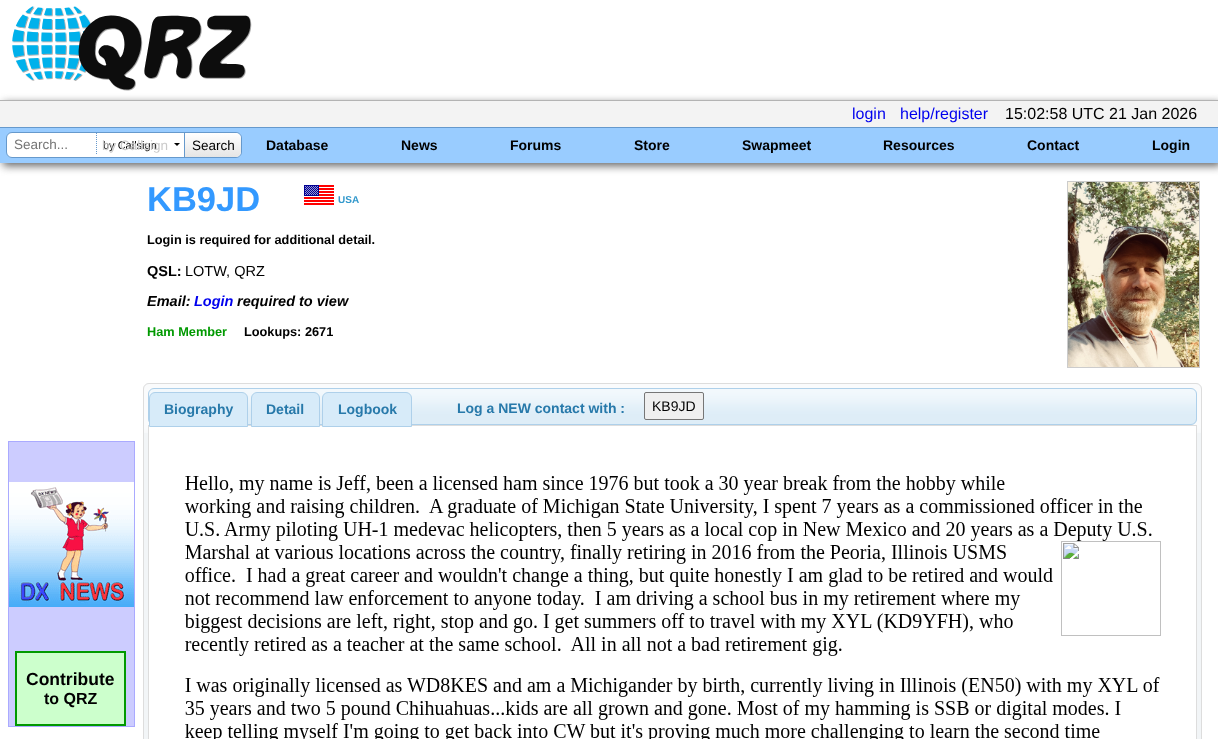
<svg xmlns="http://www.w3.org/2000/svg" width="1218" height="739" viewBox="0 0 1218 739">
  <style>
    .t1 { font: 16px Liberation Sans; fill: #00e; }
    .t2 { font: 16px Liberation Sans; fill: #000; }
    .t3 { font: 13.5px Liberation Sans; fill: #757575; }
    .t4 { font: 11px Liberation Sans; fill: #000; }
    .t5 { font: 13.5px Liberation Sans; fill: #cacaca; }
    .t6 { font: 13.5px Liberation Sans; fill: #000; }
    .t7 { font: bold 14px Liberation Sans; fill: #000; }
    .t8 { font: bold 34.5px Liberation Sans; fill: #39f; }
    .t9 { font: bold 10px Liberation Sans; fill: #39c; }
    .t10 { font: bold 12.75px Liberation Sans; fill: #000; }
    .t11 { font: bold 14.5px Liberation Sans; fill: #000; }
    .t12 { font: 14.5px Liberation Sans; fill: #000; }
    .t13 { font: italic bold 14.5px Liberation Sans; fill: #000; }
    .t14 { font: italic bold 14.5px Liberation Sans; fill: #00e; }
    .t15 { font: bold 12.75px Liberation Sans; fill: #090; }
    .t16 { font: bold 14px Liberation Sans; fill: #2779aa; }
    .t17 { font: 14px Liberation Sans; fill: #000; }
    .t18 { font: bold 17.5px Liberation Sans; fill: #000; }
    .t19 { font: bold 16px Liberation Sans; fill: #000; }
  </style>
  <defs>
    <linearGradient id="g1" gradientUnits="userSpaceOnUse" x1="213" y1="133" x2="213" y2="157"><stop offset="0" stop-color="#fff"/><stop offset="1" stop-color="#e5e5e5"/></linearGradient>
  </defs>
  <rect width="100%" height="100%" fill="#fff"/>
  <rect x="3" y="103" width="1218" height="63" fill="#666" filter="blur(4px)"/>
  <image x="12" y="6" width="240" height="85" href="images/1.png"/>
  <rect x="0" y="101" width="1218" height="26" fill="#f3f3f3"/>
  <rect x="0" y="100" width="1218" height="1" fill="#b3b3b3"/>
  <text x="852" y="119" class="t1">login</text>
  <text x="900" y="119" class="t1">help/register</text>
  <text x="1005" y="119" class="t2">15:02:58 UTC 21 Jan 2026</text>
  <rect x="0" y="128" width="1218" height="35" fill="#9cf"/>
  <rect x="0" y="127" width="1218" height="1" fill="#69c"/>
  <rect x="6.5" y="132.5" width="235" height="25" rx="5.5" fill="#fff" stroke="#69c"/>
  <path d="M96.5 133V155" fill="none" stroke="#69c" stroke-dasharray="1 1"/>
  <text x="14" y="149" class="t3">Search...</text>
  <text x="103" y="149" class="t4">by Callsign</text>
  <text x="102" y="150" class="t5">by Callsign</text>
  <rect x="184" y="133" width="1" height="24" fill="#69c"/>
  <path d="M174 143H180L177 146Z" fill="#000"/>
  <path d="M185 133H235C238.5 133 241 135.5 241 139V151C241 154.5 238.5 157 235 157H185Z" fill="url(#g1)"/>
  <text x="192" y="150" class="t6">Search</text>
  <text x="266" y="150" class="t7">Database</text>
  <text x="401" y="150" class="t7">News</text>
  <text x="510" y="150" class="t7">Forums</text>
  <text x="634" y="150" class="t7">Store</text>
  <text x="742" y="150" class="t7">Swapmeet</text>
  <text x="883" y="150" class="t7">Resources</text>
  <text x="1027" y="150" class="t7">Contact</text>
  <text x="1152" y="150" class="t7">Login</text>
  <text x="147" y="211" class="t8">KB9JD</text>
  <image x="304" y="185" width="30" height="20" href="images/2.png"/>
  <text x="338" y="203" class="t9">USA</text>
  <text x="147" y="244" class="t10">Login is required for additional detail.</text>
  <text x="147" y="276" class="t11">QSL:</text>
  <text x="185" y="276" class="t12">LOTW, QRZ</text>
  <text x="147" y="306" class="t13">Email:</text>
  <text x="194" y="306" class="t14">Login</text>
  <text x="237" y="306" class="t13">required to view</text>
  <text x="147" y="336" class="t15">Ham Member</text>
  <text x="244" y="336" class="t10">Lookups: 2671</text>
  <rect x="1067.5" y="181.5" width="132" height="186" fill="none" stroke="#ccc"/>
  <image x="1068" y="182" width="131" height="185" href="images/3.png"/>
  <rect x="143" y="383" width="1059" height="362" rx="6" fill="#f2f5f7"/>
  <image x="143" y="384" width="1059" height="49" href="images/4.png"/>
  <rect x="143.5" y="383.5" width="1058" height="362" rx="5.5" fill="none" stroke="#ddd"/>
  <image x="148" y="388" width="1049" height="37" href="images/5.png"/>
  <rect x="148.5" y="388.5" width="1048" height="36" rx="5.5" fill="none" stroke="#aed0ea"/>
  <rect x="148.5" y="425.5" width="1048" height="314" fill="#fff" stroke="#ddd"/>
  <path d="M155 392.5H242C245 392.5 247.5 395 247.5 398V426.5H149.5V398C149.5 395 152 392.5 155 392.5Z" fill="#d7ebf9" stroke="#aed0ea"/>
  <text x="164" y="414" class="t16">Biography</text>
  <path d="M257 392.5H314C317 392.5 319.5 395 319.5 398V426.5H251.5V398C251.5 395 254 392.5 257 392.5Z" fill="#d7ebf9" stroke="#aed0ea"/>
  <text x="266" y="414" class="t16">Detail</text>
  <path d="M328 392.5H406C409 392.5 411.5 395 411.5 398V426.5H322.5V398C322.5 395 325 392.5 328 392.5Z" fill="#d7ebf9" stroke="#aed0ea"/>
  <text x="338" y="414" class="t16">Logbook</text>
  <text x="457" y="413" class="t16">Log a NEW contact with :</text>
  <rect x="644.5" y="392.5" width="59" height="27" rx="1.5" fill="#efefef" stroke="#767676"/>
  <text x="652" y="411" class="t17">KB9JD</text>
  <image x="184" y="475" width="977" height="264" href="images/6.png"/>
  <rect x="8.5" y="441.5" width="126" height="285" fill="#ccf" stroke="#aaf"/>
  <image x="9" y="482" width="125" height="125" href="images/7.png"/>
  <rect x="16" y="652" width="109" height="73" fill="#cfc" stroke="#090" stroke-width="2"/>
  <text x="26" y="685" class="t18">Contribute</text>
  <text x="44" y="704" class="t19">to QRZ</text>
</svg>
